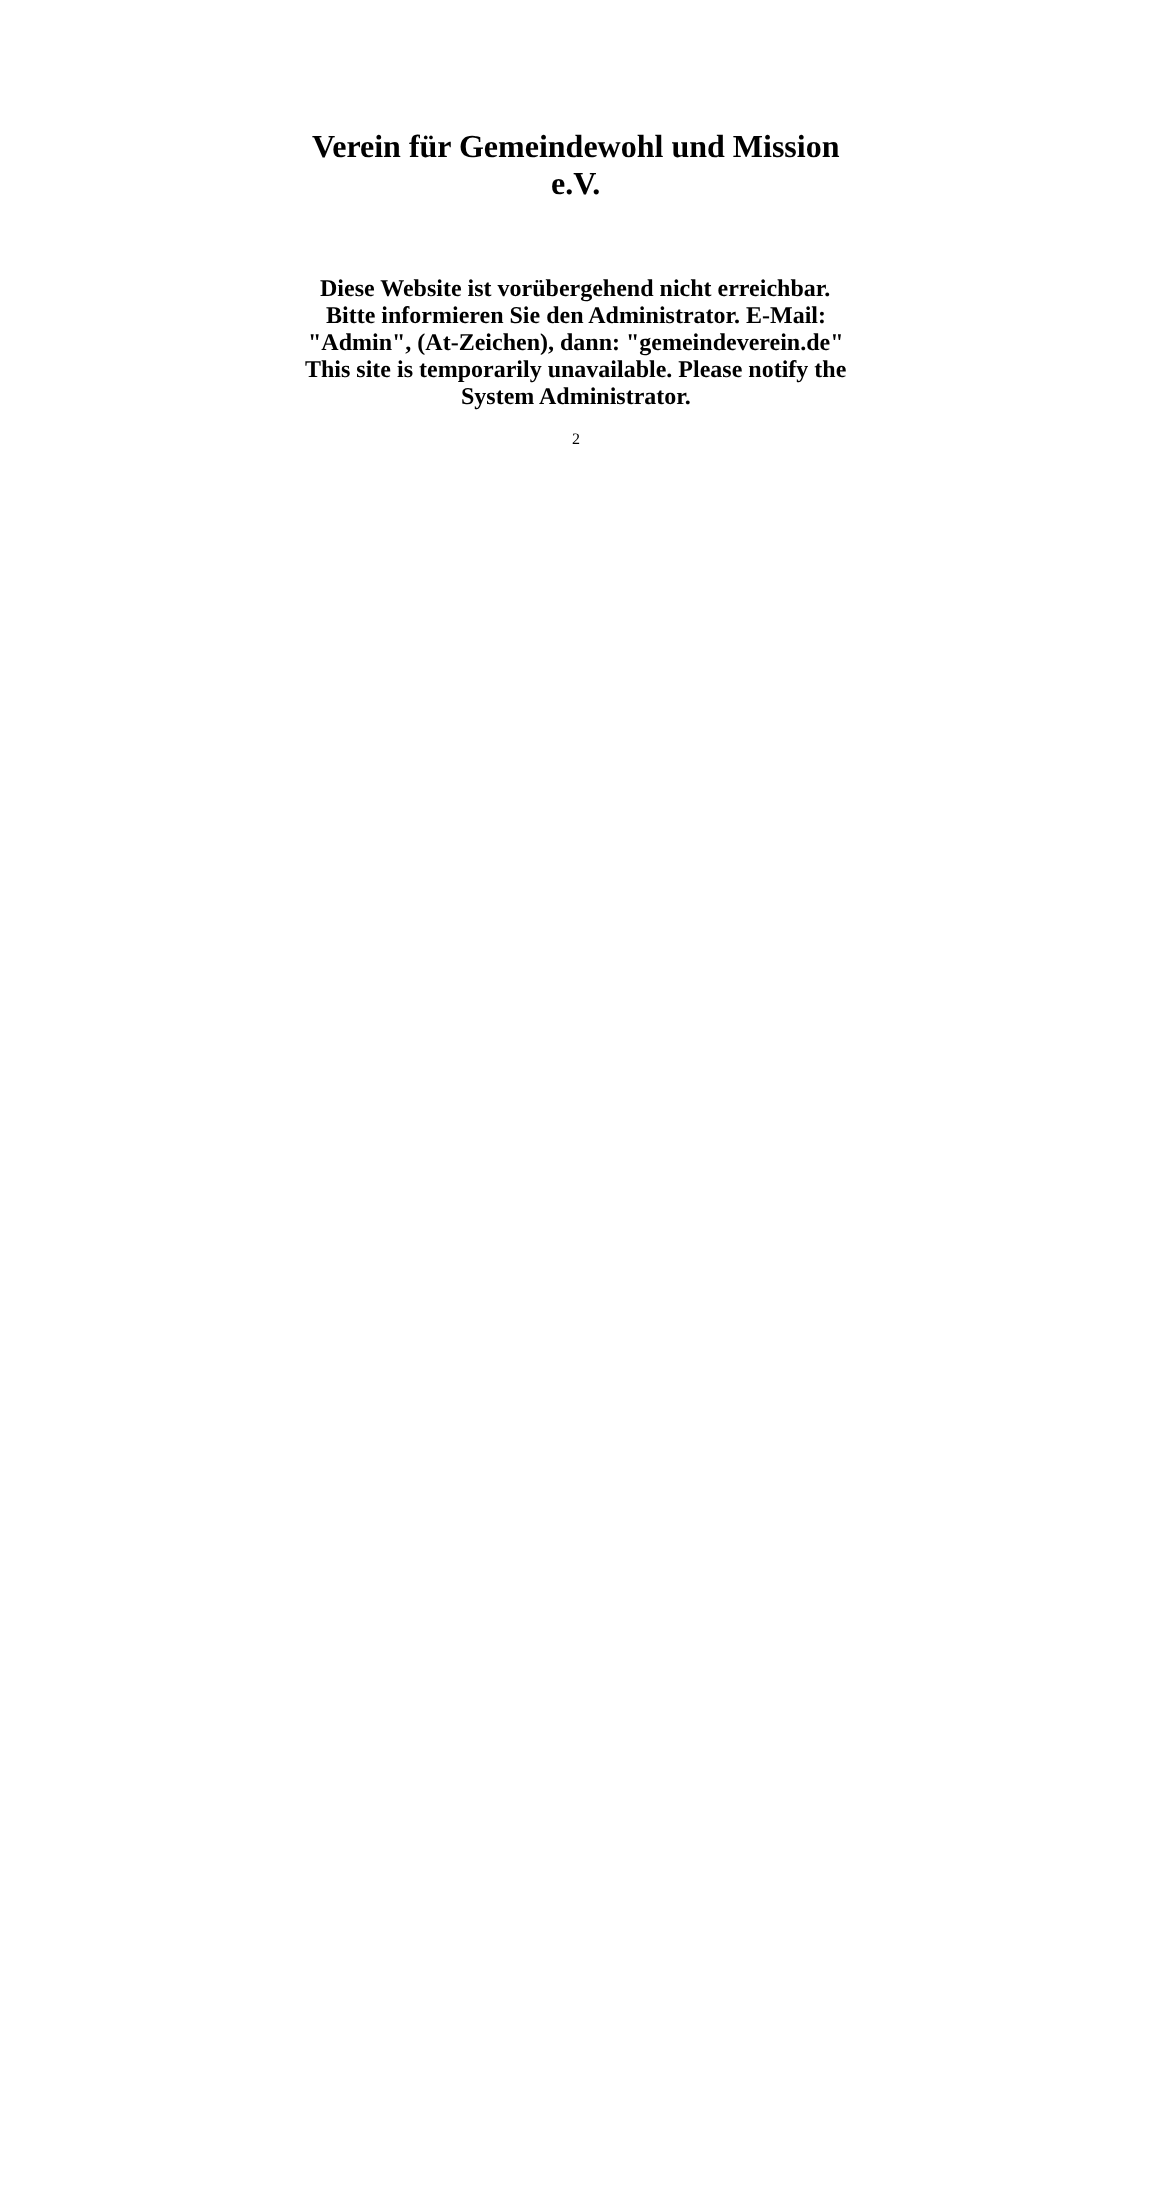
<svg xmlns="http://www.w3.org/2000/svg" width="1151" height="2201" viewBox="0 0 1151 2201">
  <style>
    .t1 { font: bold 32px Liberation Serif; fill: #000; }
    .t2 { font: bold 24px Liberation Serif; fill: #000; }
    .t3 { font: 16px Liberation Serif; fill: #000; }
  </style>
  <rect width="100%" height="100%" fill="#fff"/>
  <text x="312" y="157" class="t1">Verein für Gemeindewohl und Mission</text>
  <text x="551" y="194" class="t1">e.V.</text>
  <text x="320" y="296" class="t2">Diese Website ist vorübergehend nicht erreichbar.</text>
  <text x="326" y="323" class="t2">Bitte informieren Sie den Administrator. E-Mail:</text>
  <text x="308" y="350" class="t2">"Admin", (At-Zeichen), dann: "gemeindeverein.de"</text>
  <text x="305" y="377" class="t2">This site is temporarily unavailable. Please notify the</text>
  <text x="461" y="404" class="t2">System Administrator.</text>
  <text x="572" y="444" class="t3">2</text>
</svg>
